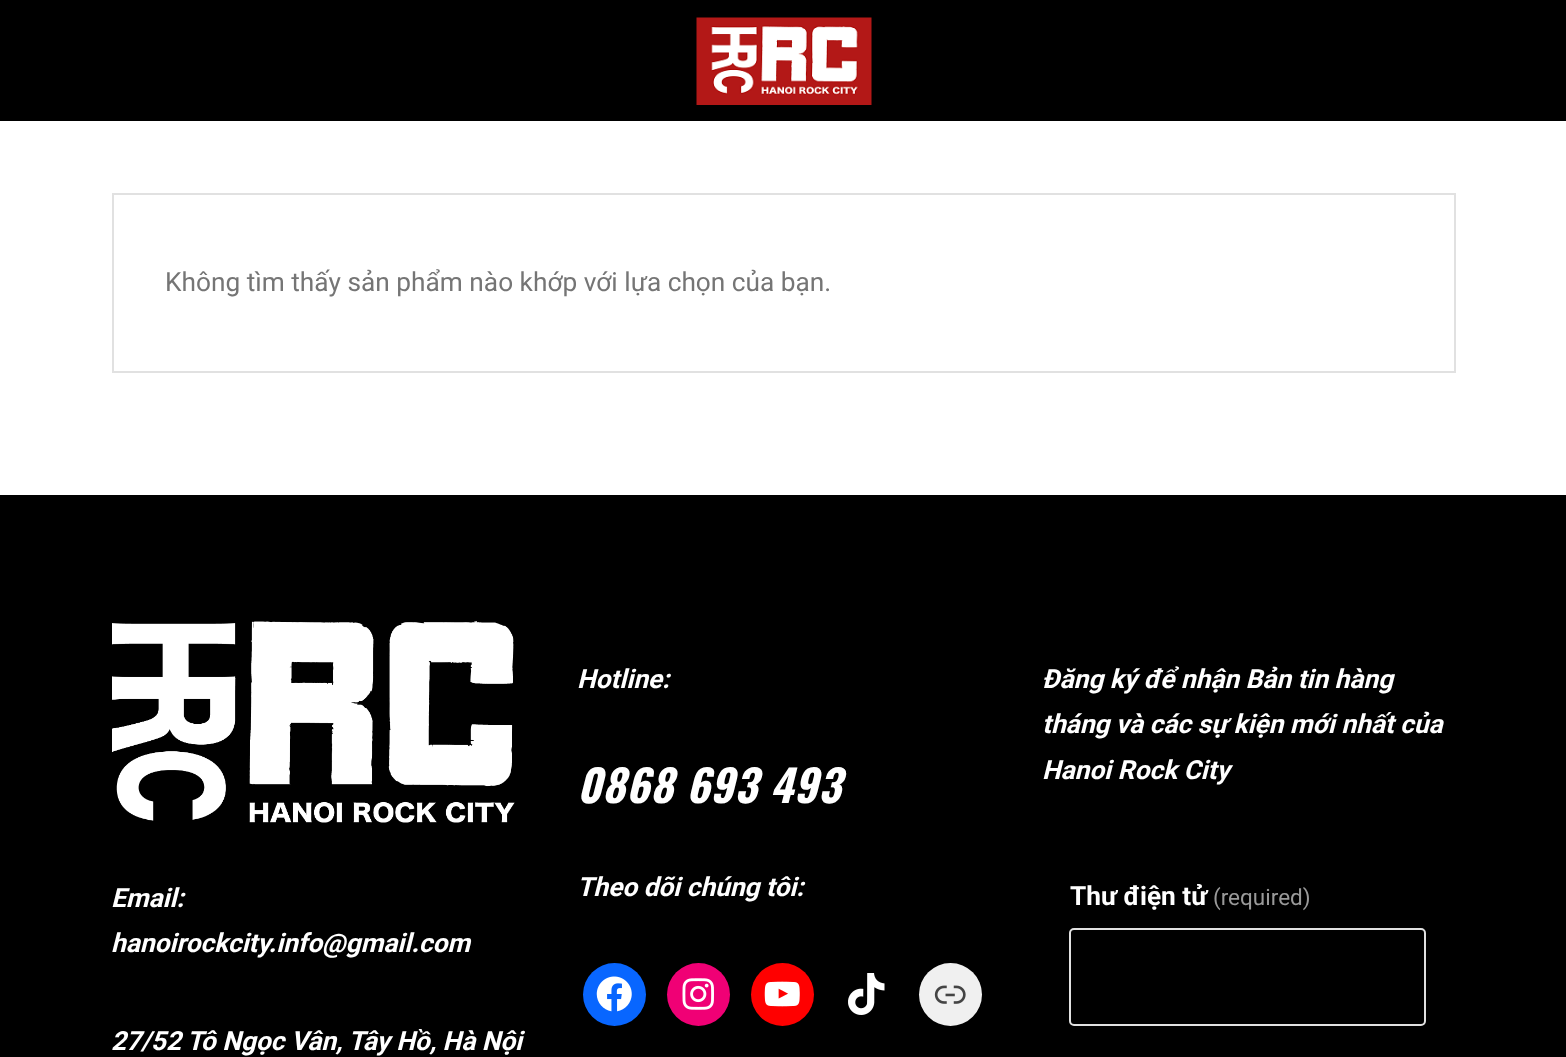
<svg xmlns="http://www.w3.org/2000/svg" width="1566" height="1057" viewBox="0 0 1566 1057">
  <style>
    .t1 { font: 26.25px Roboto; fill: #757575; }
    .t2 { font: italic bold 26.25px Roboto; fill: #fff; }
    .t3 { font: italic bold 43.75px Oswald; letter-spacing: 0.9px; fill: #fff; }
    .t4 { font: bold 26.25px Roboto; fill: #fff; }
    .t5 { font: 22.5px Roboto; fill: #999; }
  </style>
  <rect width="100%" height="100%" fill="#fff"/>
  <rect x="0" y="0" width="1566" height="121" fill="#000"/>
  <image x="696" y="17" width="176" height="88" href="images/1.png"/>
  <rect x="113" y="194" width="1342" height="178" fill="none" stroke="#e1e1e1" stroke-width="2"/>
  <text x="165" y="291" class="t1">Không tìm thấy sản phẩm nào khớp với lựa chọn của bạn.</text>
  <rect x="0" y="495" width="1566" height="562" fill="#000"/>
  <text x="577" y="688" class="t2">Hotline:</text>
  <text x="577" y="803" class="t3">0868 693 493</text>
  <text x="577" y="896" class="t2">Theo dõi chúng tôi:</text>
  <circle cx="614.5" cy="994.5" r="31.5" fill="#0866ff"/>
  <image x="596" y="976" width="36" height="36" href="images/2.png"/>
  <circle cx="698.5" cy="994.5" r="31.5" fill="#f00075"/>
  <image x="682" y="978" width="32" height="32" href="images/3.png"/>
  <circle cx="782.5" cy="994.5" r="31.5" fill="#f00"/>
  <image x="764" y="981" width="36" height="26" href="images/4.png"/>
  <image x="848" y="973" width="37" height="42" href="images/5.png"/>
  <circle cx="950.5" cy="994.5" r="31.5" fill="#f0f0f0"/>
  <image x="934" y="985" width="32" height="19" href="images/6.png"/>
  <text x="1042" y="688" class="t2">Đăng ký để nhận Bản tin hàng</text>
  <text x="1042" y="733" class="t2">tháng và các sự kiện mới nhất của</text>
  <text x="1042" y="779" class="t2">Hanoi Rock City</text>
  <text x="1070" y="905" class="t4">Thư điện tử</text>
  <text x="1213" y="905" class="t5">(required)</text>
  <rect x="1070" y="929" width="355" height="96" rx="4" fill="none" stroke="#e1e1e1" stroke-width="2"/>
  <image x="112" y="621" width="403" height="202" href="images/7.png"/>
  <text x="111" y="907" class="t2">Email:</text>
  <text x="111" y="952" class="t2">hanoirockcity.info@gmail.com</text>
  <text x="111" y="1050" class="t2">27/52 Tô Ngọc Vân, Tây Hồ, Hà Nội</text>
</svg>
